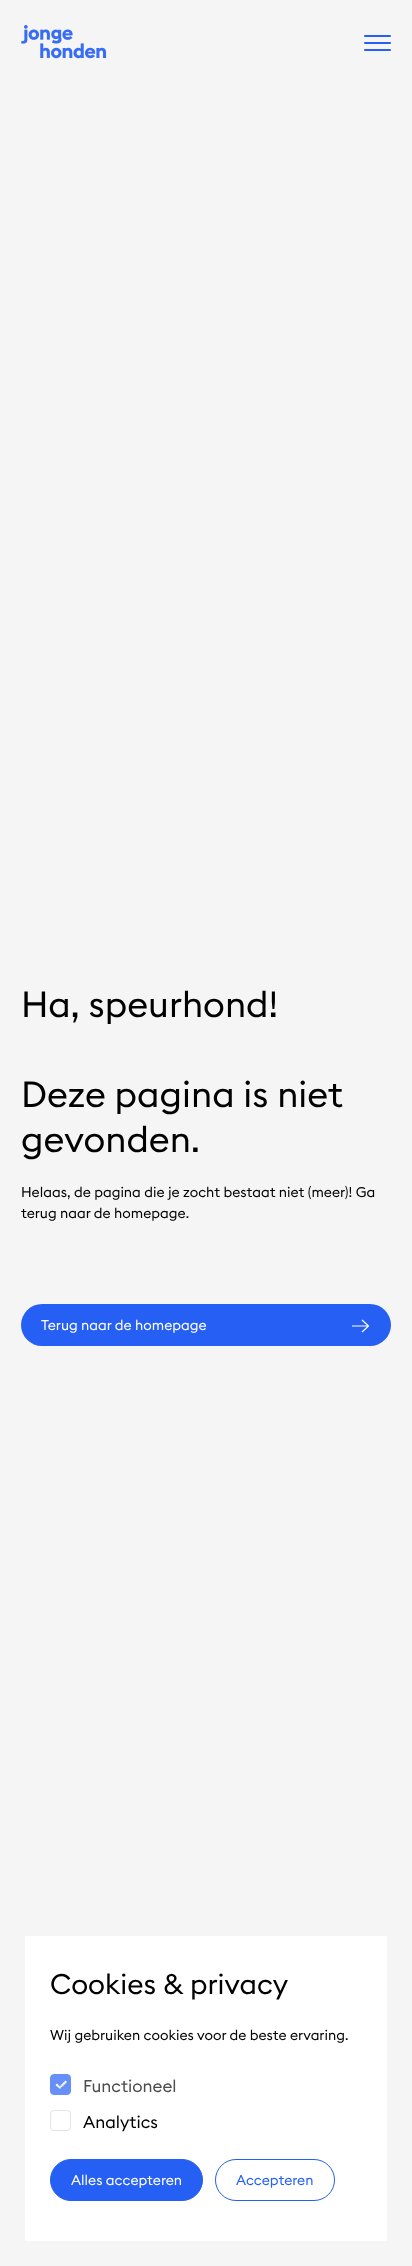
<svg xmlns="http://www.w3.org/2000/svg" width="412" height="2266" viewBox="0 0 412 2266">
  <style>
    .t1 { font: 36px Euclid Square; fill: #000; }
    .t2 { font: 14px Euclid Square; fill: #000; }
    .t3 { font: 14px Euclid Square; fill: #fff; }
    .t4 { font: 28px Euclid Square; fill: #000; }
    .t5 { font: 17px Euclid Square; fill: #4d4d4d; }
    .t6 { font: 17px Euclid Square; fill: #000; }
    .t7 { font: 14px Euclid Square; fill: #255ff3; }
  </style>
  <rect width="100%" height="100%" fill="#f5f5f5"/>
  <image x="21" y="25" width="86" height="34" href="images/1.png"/>
  <rect x="364" y="49" width="27" height="2" rx="1" fill="#255ff3"/>
  <rect x="364" y="35" width="27" height="2" rx="1" fill="#255ff3"/>
  <rect x="364" y="42" width="27" height="2" rx="1" fill="#255ff3"/>
  <text x="21" y="1017" class="t1">Ha, speurhond!</text>
  <text x="21" y="1107" class="t1">Deze pagina is niet</text>
  <text x="21" y="1152" class="t1">gevonden.</text>
  <text x="21" y="1197" class="t2">Helaas, de pagina die je zocht bestaat niet (meer)! Ga</text>
  <text x="21" y="1218" class="t2">terug naar de homepage.</text>
  <rect x="21" y="1304" width="370" height="42" rx="21" fill="#255ff3"/>
  <text x="41" y="1330" class="t3">Terug naar de homepage</text>
  <path d="M352 1326H368.5M362 1320L368.5 1326L362 1332" fill="none" stroke="#fff" stroke-width="1.2"/>
  <rect x="25" y="1936" width="362" height="305" fill="#fff"/>
  <text x="50" y="1994" class="t4">Cookies &amp; privacy</text>
  <text x="50" y="2040" class="t2">Wij gebruiken cookies voor de beste ervaring.</text>
  <rect x="50.5" y="2074.5" width="20" height="20" rx="3.5" fill="#668ff7" stroke="#668ff7"/>
  <text x="83" y="2092" class="t5">Functioneel</text>
  <path d="M65.5 2080.5L67 2082L65.5 2083.5L64 2082Z" fill="#fff"/>
  <path d="M64 2082L65.5 2083.5L64 2085L62.5 2083.5Z" fill="#fff"/>
  <path d="M62.5 2083.5L64 2085L62.5 2086.5L61 2085Z" fill="#fff"/>
  <path d="M61 2085L62.5 2086.5L61 2087.5L60 2086.5Z" fill="#fff"/>
  <path d="M60 2086.5L61 2087.5L60 2089L58.5 2087.5Z" fill="#fff"/>
  <path d="M58.5 2085L60 2086.5L58.5 2087.5L57 2086.5Z" fill="#fff"/>
  <path d="M57 2083.5L58.5 2085L57 2086.5L55.5 2085Z" fill="#fff"/>
  <rect x="50.5" y="2110.5" width="20" height="20" rx="3.5" fill="none" stroke="#e3e3e3"/>
  <text x="83" y="2128" class="t6">Analytics</text>
  <rect x="50.5" y="2159.5" width="152" height="41" rx="20.5" fill="#255ff3" stroke="#255ff3"/>
  <text x="71" y="2185" class="t3">Alles accepteren</text>
  <rect x="215.5" y="2159.5" width="119" height="41" rx="20.5" fill="none" stroke="#255ff3"/>
  <text x="236" y="2185" class="t7">Accepteren</text>
</svg>
